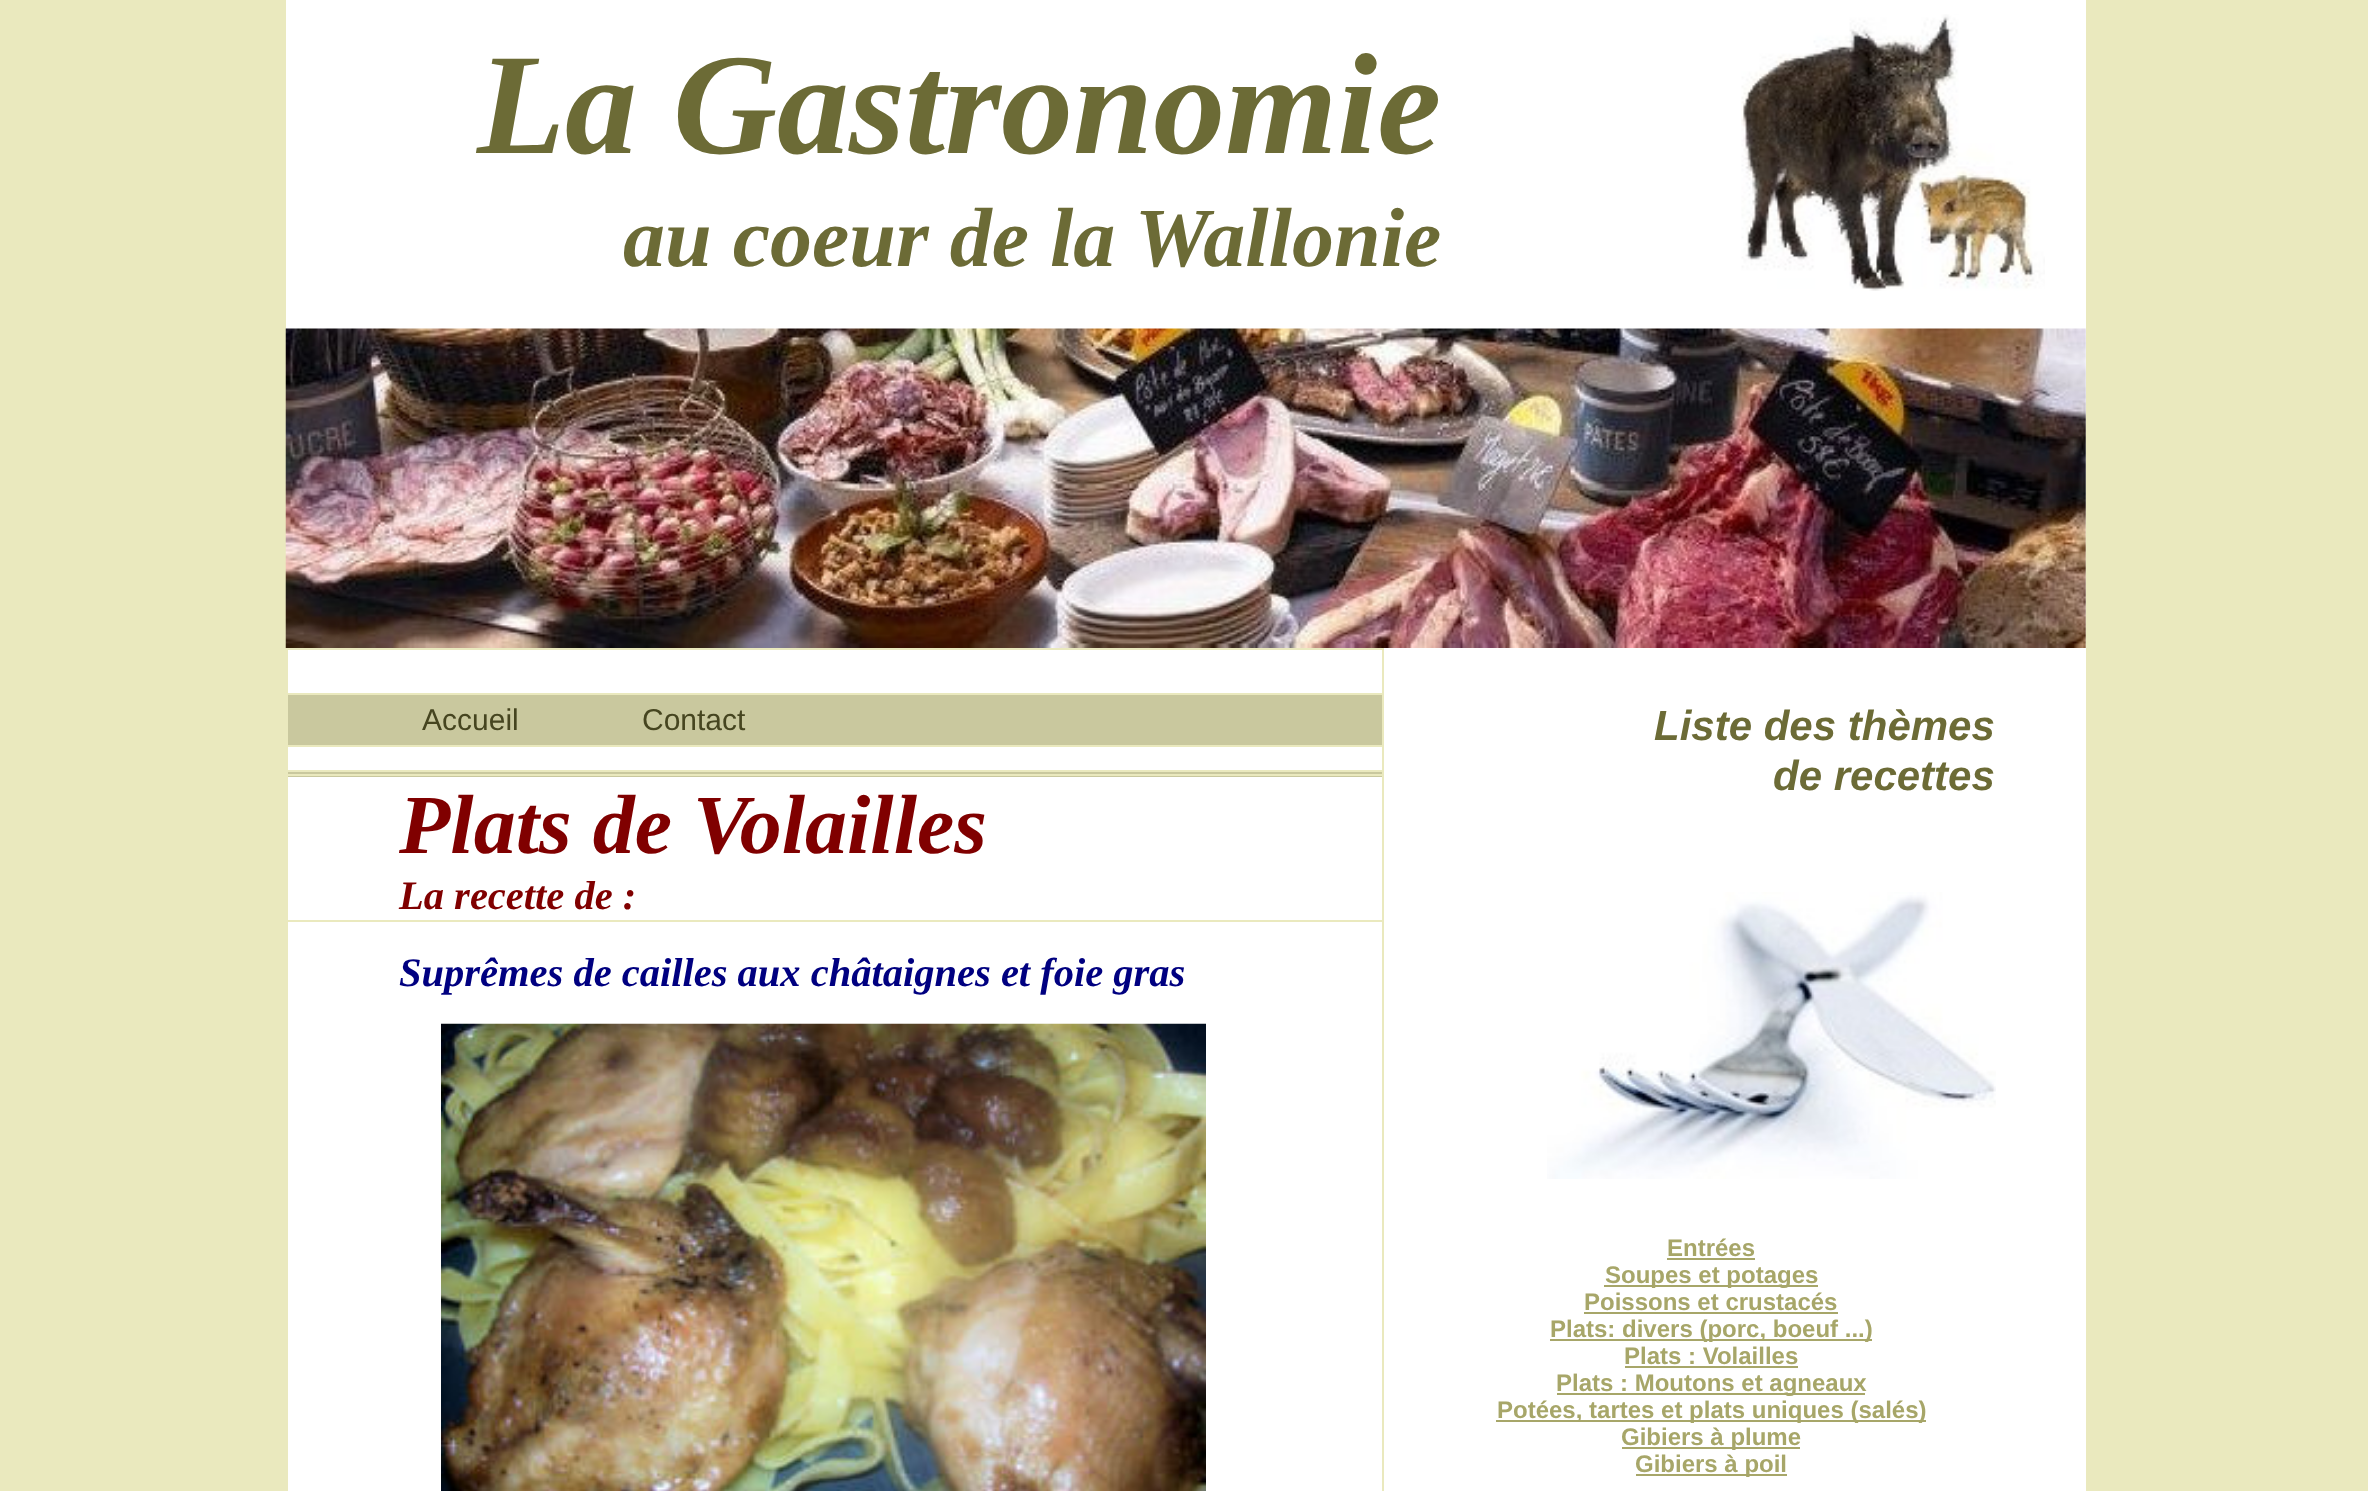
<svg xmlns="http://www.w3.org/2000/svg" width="2368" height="1491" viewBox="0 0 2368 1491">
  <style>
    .t1 { font: italic bold 144px Liberation Serif; fill: #6c6b36; }
    .t2 { font: italic bold 84px Liberation Serif; fill: #6c6b36; }
    .t3 { font: 30px Liberation Sans; fill: #464520; }
    .t4 { font: italic bold 84px Liberation Serif; fill: #800000; }
    .t5 { font: italic bold 40.5px Liberation Serif; fill: #800000; }
    .t6 { font: italic bold 40.5px Liberation Serif; fill: #000080; }
    .t7 { font: italic bold 42px Liberation Sans; fill: #6c6b36; }
    .t8 { font: bold 24px Liberation Sans; fill: #a7a669; }
  </style>
  <rect width="100%" height="100%" fill="#eae9be"/>
  <rect x="286" y="0" width="1800" height="1491" fill="#fff"/>
  <text x="477" y="153" class="t1">La Gastronomie</text>
  <text x="623" y="266" class="t2">au coeur de la Wallonie</text>
  <image x="1741" y="14" width="304" height="277" href="images/1.png"/>
  <image x="285" y="328" width="1801" height="320" href="images/2.png"/>
  <rect x="286" y="648" width="1098" height="2" fill="#eae9be"/>
  <rect x="1382" y="648" width="2" height="843" fill="#eae9be"/>
  <rect x="286" y="772" width="1096" height="5" fill="#c9c89e"/>
  <rect x="286" y="648" width="2" height="843" fill="#eae9be"/>
  <rect x="288" y="695" width="1094" height="50" fill="#c9c89e"/>
  <rect x="286" y="693" width="1098" height="2" fill="#eae9be"/>
  <text x="422" y="730" class="t3">Accueil</text>
  <text x="642" y="730" class="t3">Contact</text>
  <rect x="286" y="745" width="1098" height="2" fill="#eae9be"/>
  <rect x="286" y="770" width="1098" height="2" fill="#eae9be"/>
  <rect x="286" y="774" width="1098" height="2" fill="#eae9be"/>
  <text x="399" y="853" class="t4">Plats de Volailles</text>
  <text x="399" y="909" class="t5">La recette de :</text>
  <rect x="286" y="920" width="1098" height="2" fill="#eae9be"/>
  <text x="399" y="986" class="t6">Suprêmes de cailles aux châtaignes et foie gras</text>
  <image x="441" y="1023" width="765" height="468" href="images/3.png"/>
  <text x="1654" y="740" class="t7">Liste des thèmes</text>
  <text x="1773" y="790" class="t7">de recettes</text>
  <image x="1547" y="892" width="449" height="287" href="images/4.png"/>
  <text x="1667" y="1256" class="t8">Entrées</text>
  <rect x="1667" y="1258" width="88" height="2" fill="#a7a669"/>
  <rect x="1604" y="1285" width="214" height="2" fill="#a7a669"/>
  <text x="1605" y="1283" class="t8">Soupes et potages</text>
  <text x="1584" y="1310" class="t8">Poissons et crustacés</text>
  <rect x="1584" y="1312" width="254" height="2" fill="#a7a669"/>
  <rect x="1550" y="1339" width="322" height="2" fill="#a7a669"/>
  <text x="1550" y="1337" class="t8">Plats: divers (porc, boeuf ...)</text>
  <text x="1624" y="1364" class="t8">Plats : Volailles</text>
  <rect x="1625" y="1366" width="173" height="2" fill="#a7a669"/>
  <rect x="1557" y="1393" width="308" height="2" fill="#a7a669"/>
  <text x="1556" y="1391" class="t8">Plats : Moutons et agneaux</text>
  <rect x="1496" y="1420" width="430" height="2" fill="#a7a669"/>
  <text x="1497" y="1418" class="t8">Potées, tartes et plats uniques (salés)</text>
  <rect x="1622" y="1447" width="178" height="2" fill="#a7a669"/>
  <text x="1621" y="1445" class="t8">Gibiers à plume</text>
  <rect x="1636" y="1474" width="151" height="2" fill="#a7a669"/>
  <text x="1635" y="1472" class="t8">Gibiers à poil</text>
</svg>
